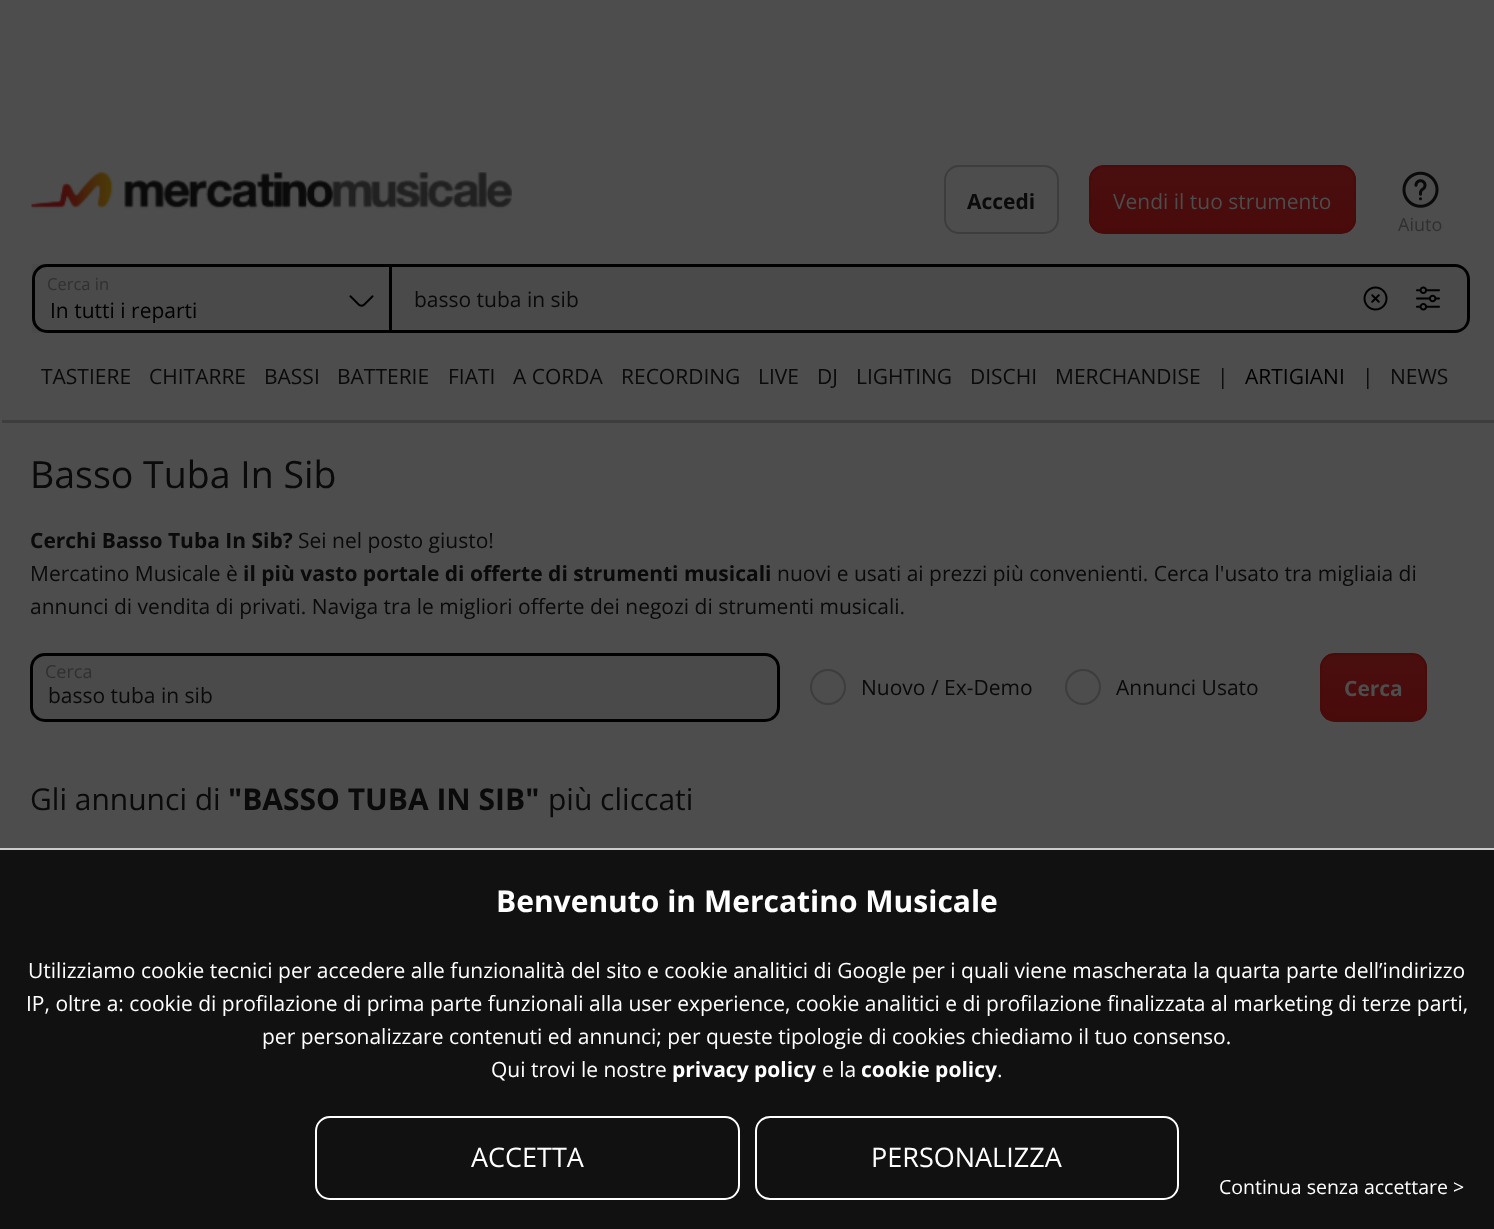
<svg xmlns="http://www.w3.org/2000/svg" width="1494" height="1229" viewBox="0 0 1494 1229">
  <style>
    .t1 { font: bold 21px Open Sans; fill: #0a0a0a; }
    .t2 { font: 21px Open Sans; fill: #4d4d4d; }
    .t3 { font: 18px Open Sans; fill: #303030; }
    .t4 { font: 16.5px Open Sans; fill: #303030; }
    .t5 { font: 21px Open Sans; fill: #000; }
    .t6 { font: 21px Open Sans; fill: #0a0a0a; }
    .t7 { font: 37.5px Open Sans; fill: #0a0a0a; }
    .t8 { font: bold 21px Open Sans; fill: #4d4d4d; }
    .t9 { font: 30px Open Sans; fill: #0a0a0a; }
    .t10 { font: bold 30px Open Sans; fill: #0a0a0a; }
    .t11 { font: bold 30px Open Sans; fill: #fff; }
    .t12 { font: 21px Open Sans; fill: #fff; }
    .t13 { font: bold 21px Open Sans; fill: #fff; }
    .t14 { font: 27px Open Sans; fill: #fff; }
    .t15 { font: 19.5px Open Sans; fill: #fff; }
  </style>
  <defs>
    <clipPath id="clip1"><rect x="1089" y="165" width="267" height="69" rx="15"/></clipPath>
    <linearGradient id="g1" gradientUnits="userSpaceOnUse" x1="1223" y1="166" x2="1223" y2="233"><stop offset="0" stop-color="#490f0f"/><stop offset="1" stop-color="#490a0a"/></linearGradient>
    <clipPath id="clip2"><rect x="1320" y="653" width="107" height="69" rx="15"/></clipPath>
    <linearGradient id="g2" gradientUnits="userSpaceOnUse" x1="1373" y1="654" x2="1373" y2="720"><stop offset="0" stop-color="#490f0f"/><stop offset="1" stop-color="#490a0a"/></linearGradient>
  </defs>
  <rect width="100%" height="100%" fill="#4d4d4d"/>
  <image x="31" y="172" width="481" height="37" href="images/1.png"/>
  <rect x="945" y="166" width="113" height="67" rx="14" fill="none" stroke="#3d3d3d" stroke-width="2"/>
  <text x="967" y="209" class="t1">Accedi</text>
  <g clip-path="url(#clip1)">
    <rect x="1089" y="167" width="267" height="66" fill="url(#g1)"/>
  </g>
  <rect x="1090" y="166" width="265" height="67" rx="14" fill="none" stroke="#490a0a" stroke-width="2"/>
  <text x="1113" y="209" class="t2">Vendi il tuo strumento</text>
  <image x="1402" y="171" width="37" height="37" href="images/2.png"/>
  <text x="1398" y="231" class="t3">Aiuto</text>
  <rect x="32" y="264" width="357" height="69" fill="#4a4a4a"/>
  <path d="M47 265.5H390.5V331.5H47C39.5 331.5 33.5 325.5 33.5 318V279C33.5 271.5 39.5 265.5 47 265.5Z" fill="none" stroke="#000" stroke-width="3"/>
  <text x="47" y="290" class="t4">Cerca in</text>
  <text x="50" y="318" class="t5">In tutti i reparti</text>
  <image x="349" y="295" width="25" height="12" href="images/3.png"/>
  <path d="M392 264H1455C1463.5 264 1470 270.5 1470 279V318C1470 326.5 1463.5 333 1455 333H392Z" fill="#4a4a4a"/>
  <path d="M392 264H1455C1463 264 1470 271 1470 279V318C1470 326 1463 333 1455 333H392ZM392 267H1455C1462 267 1467 272 1467 279V318C1467 325 1462 330 1455 330H392Z" fill="#000" fill-rule="evenodd"/>
  <text x="414" y="307" class="t6">basso tuba in sib</text>
  <image x="1363" y="286" width="25" height="25" href="images/4.png"/>
  <image x="1416" y="286" width="24" height="25" href="images/5.png"/>
  <rect x="2" y="420" width="1492" height="3" fill="#3d3d3d"/>
  <text x="41" y="384" class="t6">TASTIERE</text>
  <text x="149" y="384" class="t6">CHITARRE</text>
  <text x="264" y="384" class="t6">BASSI</text>
  <text x="337" y="384" class="t6">BATTERIE</text>
  <text x="448" y="384" class="t6">FIATI</text>
  <text x="513" y="384" class="t6">A CORDA</text>
  <text x="621" y="384" class="t6">RECORDING</text>
  <text x="758" y="384" class="t6">LIVE</text>
  <text x="817" y="384" class="t6">DJ</text>
  <text x="856" y="384" class="t6">LIGHTING</text>
  <text x="970" y="384" class="t6">DISCHI</text>
  <text x="1055" y="384" class="t6">MERCHANDISE</text>
  <text x="1217" y="384" class="t6">|</text>
  <text x="1245" y="384" class="t5">ARTIGIANI</text>
  <text x="1362" y="384" class="t6">|</text>
  <text x="1390" y="384" class="t6">NEWS</text>
  <text x="30" y="488" class="t7">Basso Tuba In Sib</text>
  <text x="30" y="548" class="t1">Cerchi Basso Tuba In Sib?</text>
  <text x="298" y="548" class="t6">Sei nel posto giusto!</text>
  <text x="30" y="581" class="t6">Mercatino Musicale è</text>
  <text x="243" y="581" class="t1">il più vasto portale di offerte di strumenti musicali</text>
  <text x="777" y="581" class="t6">nuovi e usati ai prezzi più convenienti. Cerca l'usato tra migliaia di</text>
  <text x="30" y="614" class="t6">annunci di vendita di privati. Naviga tra le migliori offerte dei negozi di strumenti musicali.</text>
  <rect x="31.5" y="654.5" width="747" height="66" rx="13.5" fill="#4a4a4a" stroke="#000" stroke-width="3"/>
  <text x="45" y="678" class="t3">Cerca</text>
  <text x="48" y="703" class="t6">basso tuba in sib</text>
  <circle cx="828" cy="687" r="17" fill="none" stroke="#3d3d3d" stroke-width="2"/>
  <text x="861" y="695" class="t6">Nuovo / Ex-Demo</text>
  <circle cx="1083" cy="687" r="17" fill="none" stroke="#3d3d3d" stroke-width="2"/>
  <text x="1116" y="695" class="t6">Annunci Usato</text>
  <g clip-path="url(#clip2)">
    <rect x="1320" y="654" width="107" height="66" fill="url(#g2)"/>
  </g>
  <rect x="1321" y="654" width="105" height="67" rx="14" fill="none" stroke="#490a0a" stroke-width="2"/>
  <text x="1344" y="696" class="t8">Cerca</text>
  <text x="30" y="810" class="t9">Gli annunci di</text>
  <text x="228" y="810" class="t10">"BASSO TUBA IN SIB"</text>
  <text x="548" y="810" class="t9">più cliccati</text>
  <rect x="0" y="850" width="1494" height="379" fill="#111"/>
  <rect x="0" y="848" width="1494" height="2" fill="#ccc"/>
  <text x="496" y="912" class="t11">Benvenuto in Mercatino Musicale</text>
  <text x="28" y="978" class="t12">Utilizziamo cookie tecnici per accedere alle funzionalità del sito e cookie analitici di Google per i quali viene mascherata la quarta parte dell’indirizzo</text>
  <text x="26" y="1011" class="t12">IP, oltre a: cookie di profilazione di prima parte funzionali alla user experience, cookie analitici e di profilazione finalizzata al marketing di terze parti,</text>
  <text x="262" y="1044" class="t12">per personalizzare contenuti ed annunci; per queste tipologie di cookies chiediamo il tuo consenso.</text>
  <text x="491" y="1077" class="t12">Qui trovi le nostre</text>
  <text x="672" y="1077" class="t13">privacy policy</text>
  <text x="822" y="1077" class="t12">e la</text>
  <text x="861" y="1077" class="t13">cookie policy</text>
  <text x="997" y="1077" class="t12">.</text>
  <rect x="316" y="1117" width="423" height="82" rx="14" fill="none" stroke="#fff" stroke-width="2"/>
  <text x="471" y="1167" class="t14">ACCETTA</text>
  <rect x="756" y="1117" width="422" height="82" rx="14" fill="none" stroke="#fff" stroke-width="2"/>
  <text x="871" y="1167" class="t14">PERSONALIZZA</text>
  <text x="1219" y="1194" class="t15">Continua senza accettare &gt;</text>
</svg>
